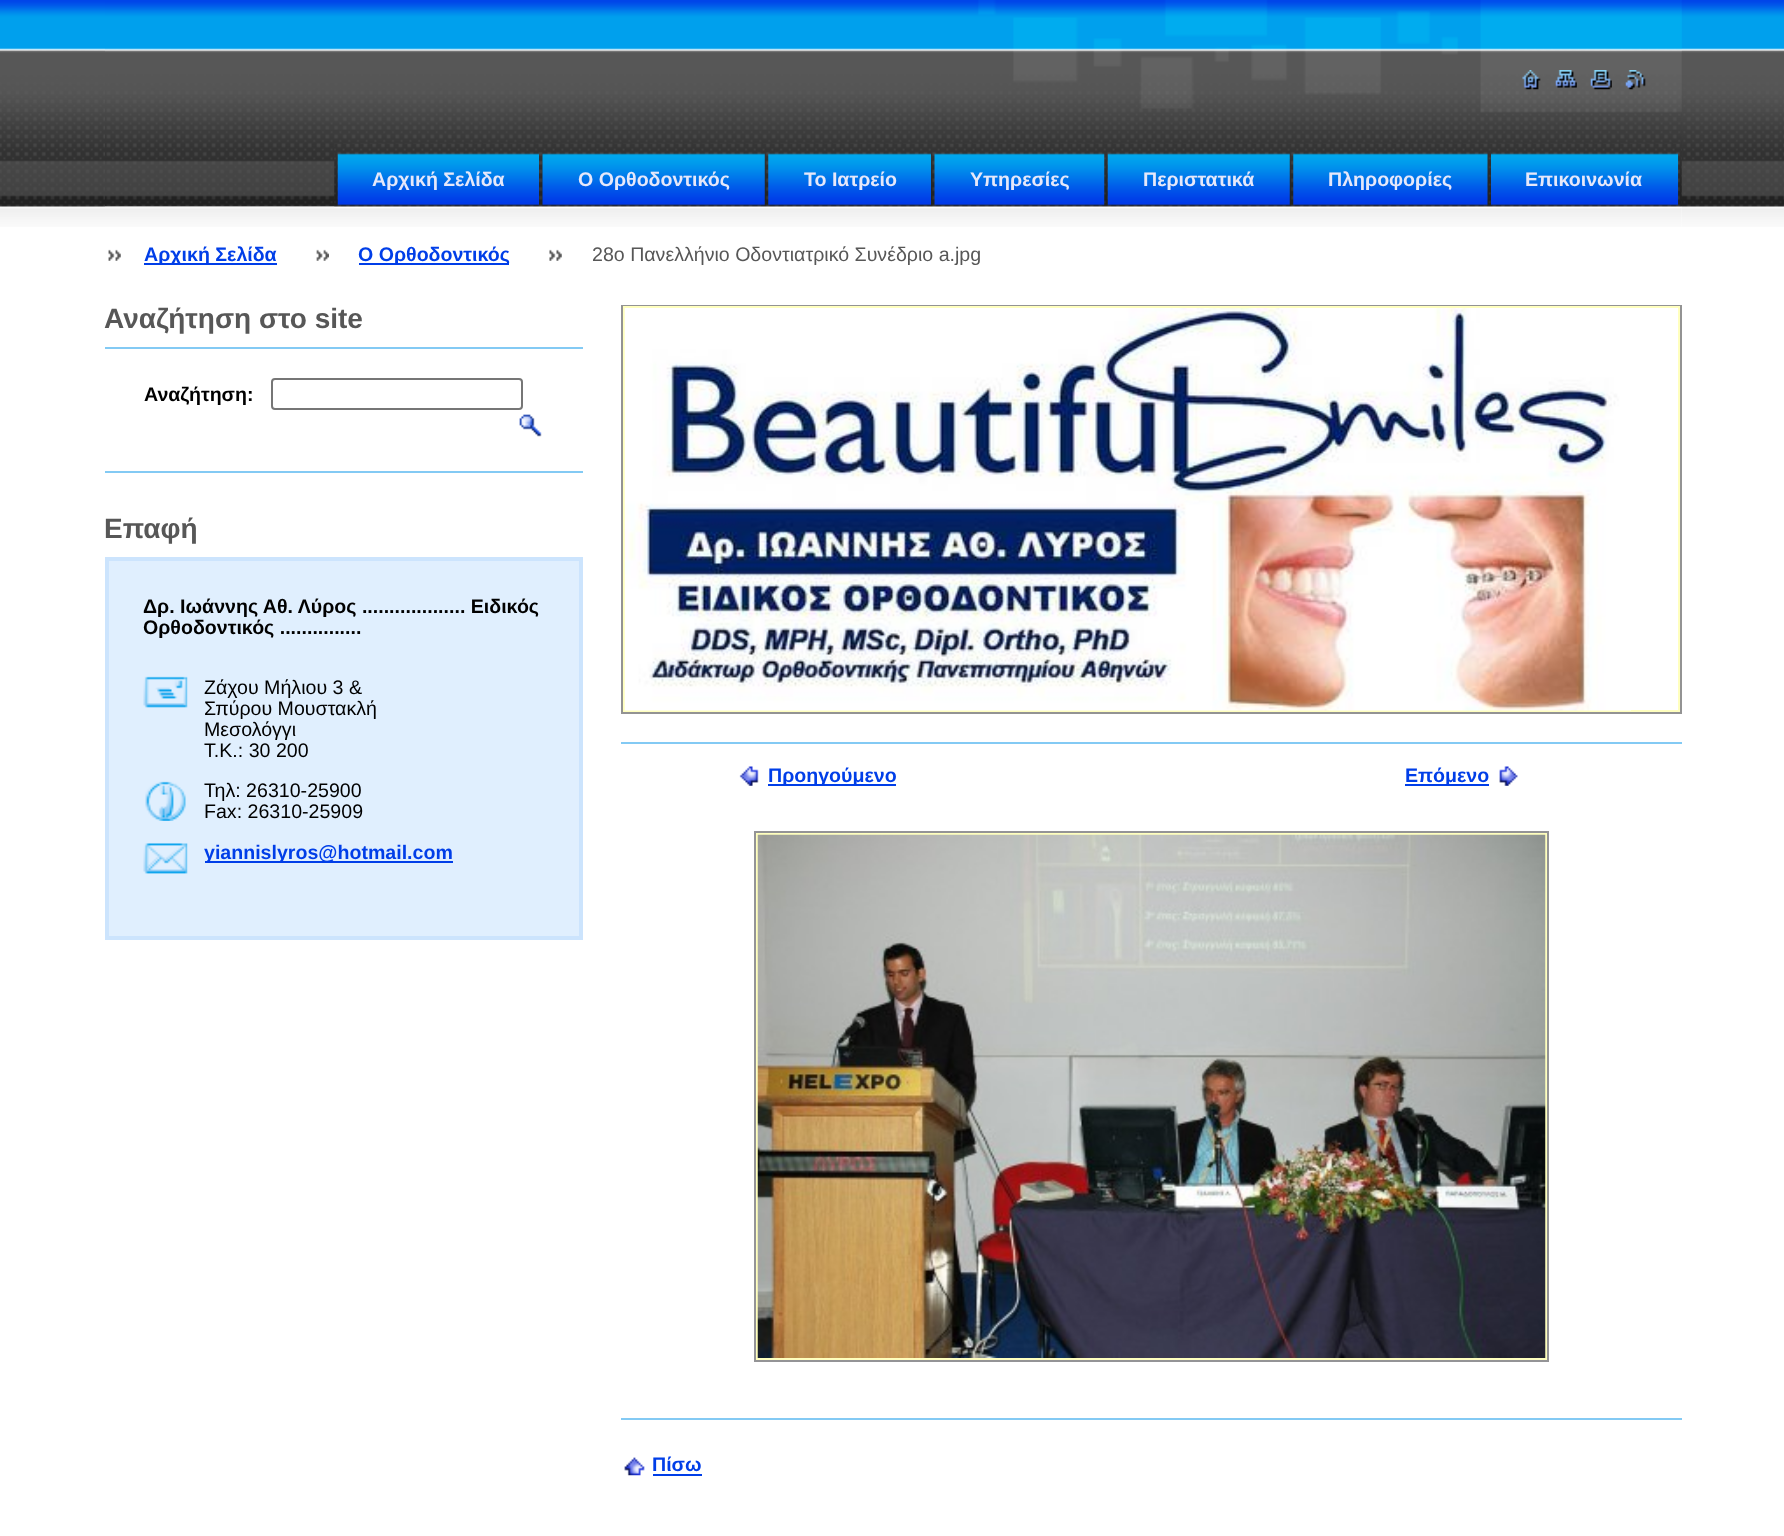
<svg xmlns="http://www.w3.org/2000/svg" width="1784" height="1536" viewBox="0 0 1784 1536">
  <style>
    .t1 { font: bold 19.6px Liberation Sans; fill: #e6e8fa; }
    .t2 { font: bold 19.6px Liberation Sans; fill: #003ee8; }
    .t3 { font: 19.6px Liberation Sans; fill: #575757; }
    .t4 { font: bold 28px Liberation Sans; fill: #575757; }
    .t5 { font: bold 19.6px Liberation Sans; fill: #000; }
    .t6 { font: 19.6px Liberation Sans; fill: #000; }
  </style>
  <rect width="100%" height="100%" fill="#fff"/>
  <image x="0" y="0" width="1784" height="227" href="images/1.png"/>
  <image x="105" y="0" width="1577" height="207" href="images/2.png"/>
  <image x="1522" y="70" width="19" height="20" href="images/3.png"/>
  <image x="1555" y="70" width="22" height="18" href="images/4.png"/>
  <image x="1590" y="70" width="22" height="20" href="images/5.png"/>
  <image x="1625" y="70" width="21" height="20" href="images/6.png"/>
  <rect x="105" y="207" width="1577" height="20" fill="#fff"/>
  <image x="105" y="206" width="1577" height="21" href="images/15.png"/>
  <image x="334" y="143" width="1348" height="65" href="images/7.png"/>
  <image x="337" y="153" width="202" height="53" href="images/8.png"/>
  <text x="372" y="186" class="t1">Αρχική Σελίδα</text>
  <image x="542" y="153" width="223" height="53" href="images/9.png"/>
  <text x="578" y="186" class="t1">Ο Ορθοδοντικός</text>
  <image x="768" y="153" width="163" height="53" href="images/10.png"/>
  <text x="804" y="186" class="t1">Το Ιατρείο</text>
  <image x="934" y="153" width="171" height="53" href="images/11.png"/>
  <text x="970" y="186" class="t1">Υπηρεσίες</text>
  <image x="1107" y="153" width="183" height="53" href="images/12.png"/>
  <text x="1143" y="186" class="t1">Περιστατικά</text>
  <image x="1293" y="153" width="195" height="53" href="images/13.png"/>
  <text x="1328" y="186" class="t1">Πληροφορίες</text>
  <image x="1491" y="153" width="188" height="53" href="images/14.png"/>
  <text x="1525" y="186" class="t1">Επικοινωνία</text>
  <image x="108" y="249" width="13" height="12" href="images/16.png"/>
  <rect x="144" y="263" width="133" height="2" fill="#003ee8"/>
  <text x="144" y="261" class="t2">Αρχική Σελίδα</text>
  <image x="316" y="249" width="13" height="12" href="images/17.png"/>
  <rect x="359" y="263" width="150" height="2" fill="#003ee8"/>
  <text x="358" y="261" class="t2">Ο Ορθοδοντικός</text>
  <image x="549" y="249" width="13" height="12" href="images/18.png"/>
  <text x="592" y="261" class="t3">28ο Πανελλήνιο Οδοντιατρικό Συνέδριο a.jpg</text>
  <text x="104" y="328" class="t4">Αναζήτηση στο site</text>
  <rect x="105" y="347" width="478" height="2" fill="#83caf4"/>
  <rect x="105" y="471" width="478" height="2" fill="#83caf4"/>
  <text x="144" y="401" class="t5">Αναζήτηση:</text>
  <rect x="272" y="379" width="250" height="30" rx="3" fill="none" stroke="#767676" stroke-width="2"/>
  <image x="519" y="414" width="23" height="23" href="images/19.png"/>
  <text x="104" y="538" class="t4">Επαφή</text>
  <rect x="107" y="559" width="474" height="379" fill="#e0effe" stroke="#cce4fd" stroke-width="4"/>
  <text x="143" y="613" class="t5">Δρ. Ιωάννης Αθ. Λύρος ................... Ειδικός</text>
  <text x="143" y="634" class="t5">Ορθοδοντικός ...............</text>
  <image x="143" y="676" width="45" height="32" href="images/20.png"/>
  <text x="204" y="694" class="t6">Ζάχου Μήλιου 3 &amp;</text>
  <text x="204" y="715" class="t6">Σπύρου Μουστακλή</text>
  <text x="204" y="736" class="t6">Μεσολόγγι</text>
  <text x="204" y="757" class="t6">T.K.: 30 200</text>
  <image x="145" y="781" width="41" height="40" href="images/21.png"/>
  <text x="204" y="797" class="t6">Τηλ: 26310-25900</text>
  <text x="204" y="818" class="t6">Fax: 26310-25909</text>
  <image x="143" y="843" width="45" height="31" href="images/22.png"/>
  <rect x="205" y="861" width="248" height="2" fill="#003ee8"/>
  <text x="204" y="859" class="t2">yiannislyros@hotmail.com</text>
  <rect x="622" y="306" width="1059" height="407" fill="none" stroke="#939393" stroke-width="2"/>
  <rect x="624" y="307" width="1055" height="404" fill="none" stroke="#ffffbe" stroke-width="2"/>
  <image x="624" y="308" width="1007" height="403" href="images/23.png"/>
  <rect x="621" y="742" width="1061" height="2" fill="#83caf4"/>
  <rect x="621" y="1418" width="1061" height="2" fill="#83caf4"/>
  <image x="739" y="766" width="20" height="20" href="images/24.png"/>
  <rect x="768" y="784" width="128" height="2" fill="#003ee8"/>
  <text x="768" y="782" class="t2">Προηγούμενο</text>
  <rect x="1405" y="784" width="84" height="2" fill="#003ee8"/>
  <text x="1405" y="782" class="t2">Επόμενο</text>
  <image x="1499" y="766" width="19" height="20" href="images/25.png"/>
  <rect x="755" y="832" width="793" height="529" fill="none" stroke="#949496" stroke-width="2"/>
  <rect x="757" y="834" width="789" height="525" fill="none" stroke="#ffffbe" stroke-width="2"/>
  <image x="757" y="834" width="789" height="524" href="images/26.png"/>
  <image x="624" y="1457" width="21" height="19" href="images/27.png"/>
  <text x="652" y="1471" class="t2">Πίσω</text>
  <rect x="653" y="1474" width="49" height="2" fill="#003ee8"/>
</svg>
